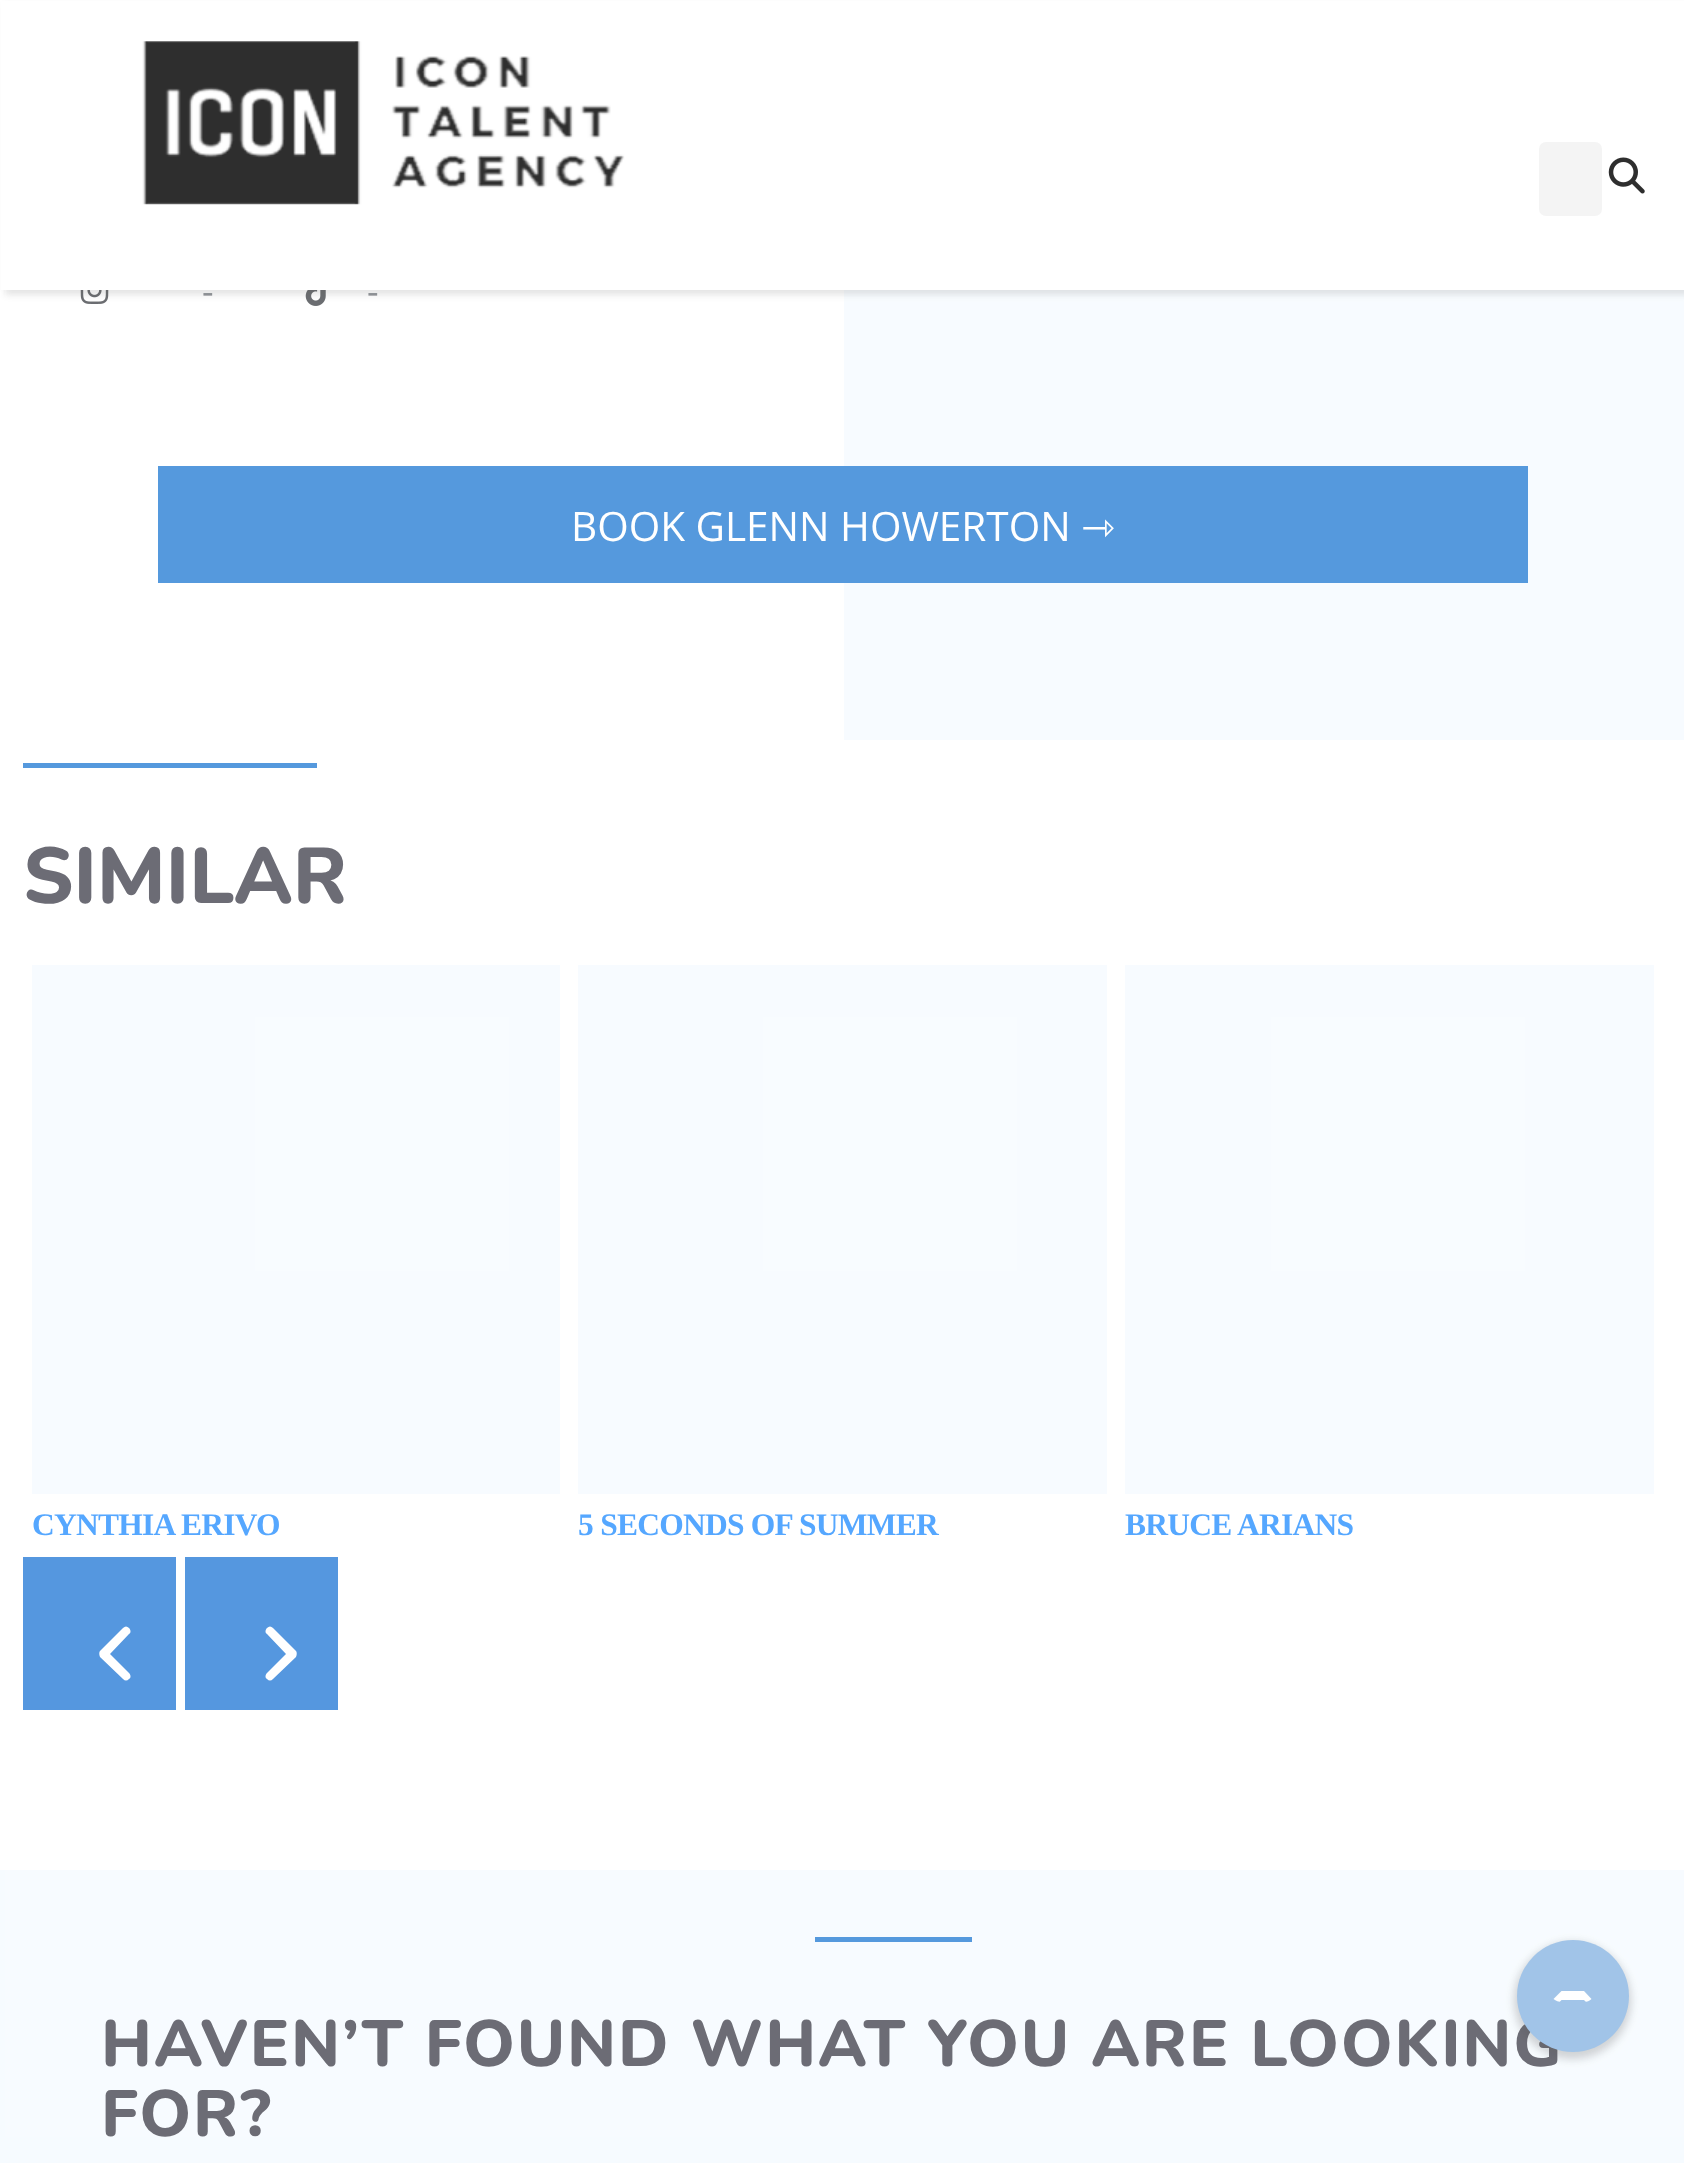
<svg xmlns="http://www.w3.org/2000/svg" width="1684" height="2163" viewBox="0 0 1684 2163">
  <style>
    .t1 { font: 36px Open Sans; fill: #73777c; }
    .t2 { font: 40.5px Open Sans; fill: #fff; }
    .t3 { font: 40.5px DejaVu Sans; fill: #fff; }
    .t4 { font: 800 78.75px Nunito; fill: #4b4b56; }
    .t5 { font: bold 31.5px Liberation Serif; letter-spacing: -0.75px; fill: #2e93ff; }
    .t6 { font: 800 65.25px Nunito; letter-spacing: 1.8px; fill: #4b4b56; }
  </style>
  <rect width="100%" height="100%" fill="#fff"/>
  <rect x="844" y="290" width="840" height="450" fill="#f6fbff"/>
  <image x="80" y="290" width="29" height="14" href="images/3.png"/>
  <image x="305" y="290" width="21" height="16" href="images/4.png"/>
  <rect x="5" y="5" width="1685" height="290" fill="#2e2e2e26" filter="blur(3px)"/>
  <rect x="1" y="1" width="1683" height="289" fill="#fff"/>
  <image x="142" y="41" width="483" height="164" href="images/1.png"/>
  <rect x="1539" y="142" width="63" height="74" rx="7" fill="#f4f4f4"/>
  <image x="1608" y="157" width="37" height="37" href="images/2.png"/>
  <text x="202" y="304" class="t1">-</text>
  <text x="367" y="304" class="t1">-</text>
  <rect x="158" y="466" width="1370" height="117" fill="#2e82d5"/>
  <text x="571" y="541" class="t2">BOOK GLENN HOWERTON</text>
  <text x="1081" y="541" class="t3">⇾</text>
  <rect x="23" y="763" width="294" height="5" fill="#2e82d5"/>
  <text x="23" y="903" class="t4">SIMILAR</text>
  <rect x="32" y="965" width="528" height="529" fill="#f6fbff"/>
  <text x="32" y="1535" class="t5">CYNTHIA ERIVO</text>
  <rect x="578" y="965" width="529" height="529" fill="#f6fbff"/>
  <text x="578" y="1535" class="t5">5 SECONDS OF SUMMER</text>
  <rect x="1125" y="965" width="529" height="529" fill="#f6fbff"/>
  <text x="1125" y="1535" class="t5">BRUCE ARIANS</text>
  <rect x="23" y="1557" width="153" height="153" fill="#2e7fd8"/>
  <path d="M100 1651C99 1652 99 1655 100 1657L123 1679C125 1681 127 1681 129 1679C131 1678 131 1675 129 1673L110 1654L129 1634C131 1633 131 1630 129 1628C127 1626 125 1626 123 1628Z" fill="#fff"/>
  <rect x="185" y="1557" width="153" height="153" fill="#2e7fd8"/>
  <path d="M296 1651C297 1652 297 1655 296 1657L273 1679C271 1681 269 1681 267 1679C265 1678 265 1675 267 1673L286 1654L267 1634C265 1633 265 1630 267 1628C269 1626 271 1626 273 1628Z" fill="#fff"/>
  <rect x="0" y="1870" width="1684" height="293" fill="#f6fbff"/>
  <rect x="815" y="1937" width="157" height="5" fill="#2e82d5"/>
  <text x="101" y="2066" class="t6">HAVEN’T FOUND WHAT YOU ARE LOOKING</text>
  <text x="101" y="2136" class="t6">FOR?</text>
  <rect x="1514" y="1942" width="117" height="117" rx="58.5" fill="#2e2e2e40" filter="blur(4.5px)"/>
  <circle cx="1573" cy="1996" r="56" fill="#8cb7e3"/>
  <path d="M1591.5 1999L1584 1991H1561.5L1553.5 1999C1556 2001 1558.5 2002 1562 2002H1584C1587 2002 1589.5 2001 1591.5 1999Z" fill="#fff"/>
  <path d="M1592 2008L1584 2000H1561.5L1553.5 2008.5C1555 2010 1556.5 2011 1558.5 2011.5H1587C1589 2011 1590.5 2009.5 1592 2008Z" fill="#8cb7e3"/>
  <rect x="5" y="290" width="1679" height="1847" fill="#ffffff30"/>
</svg>
